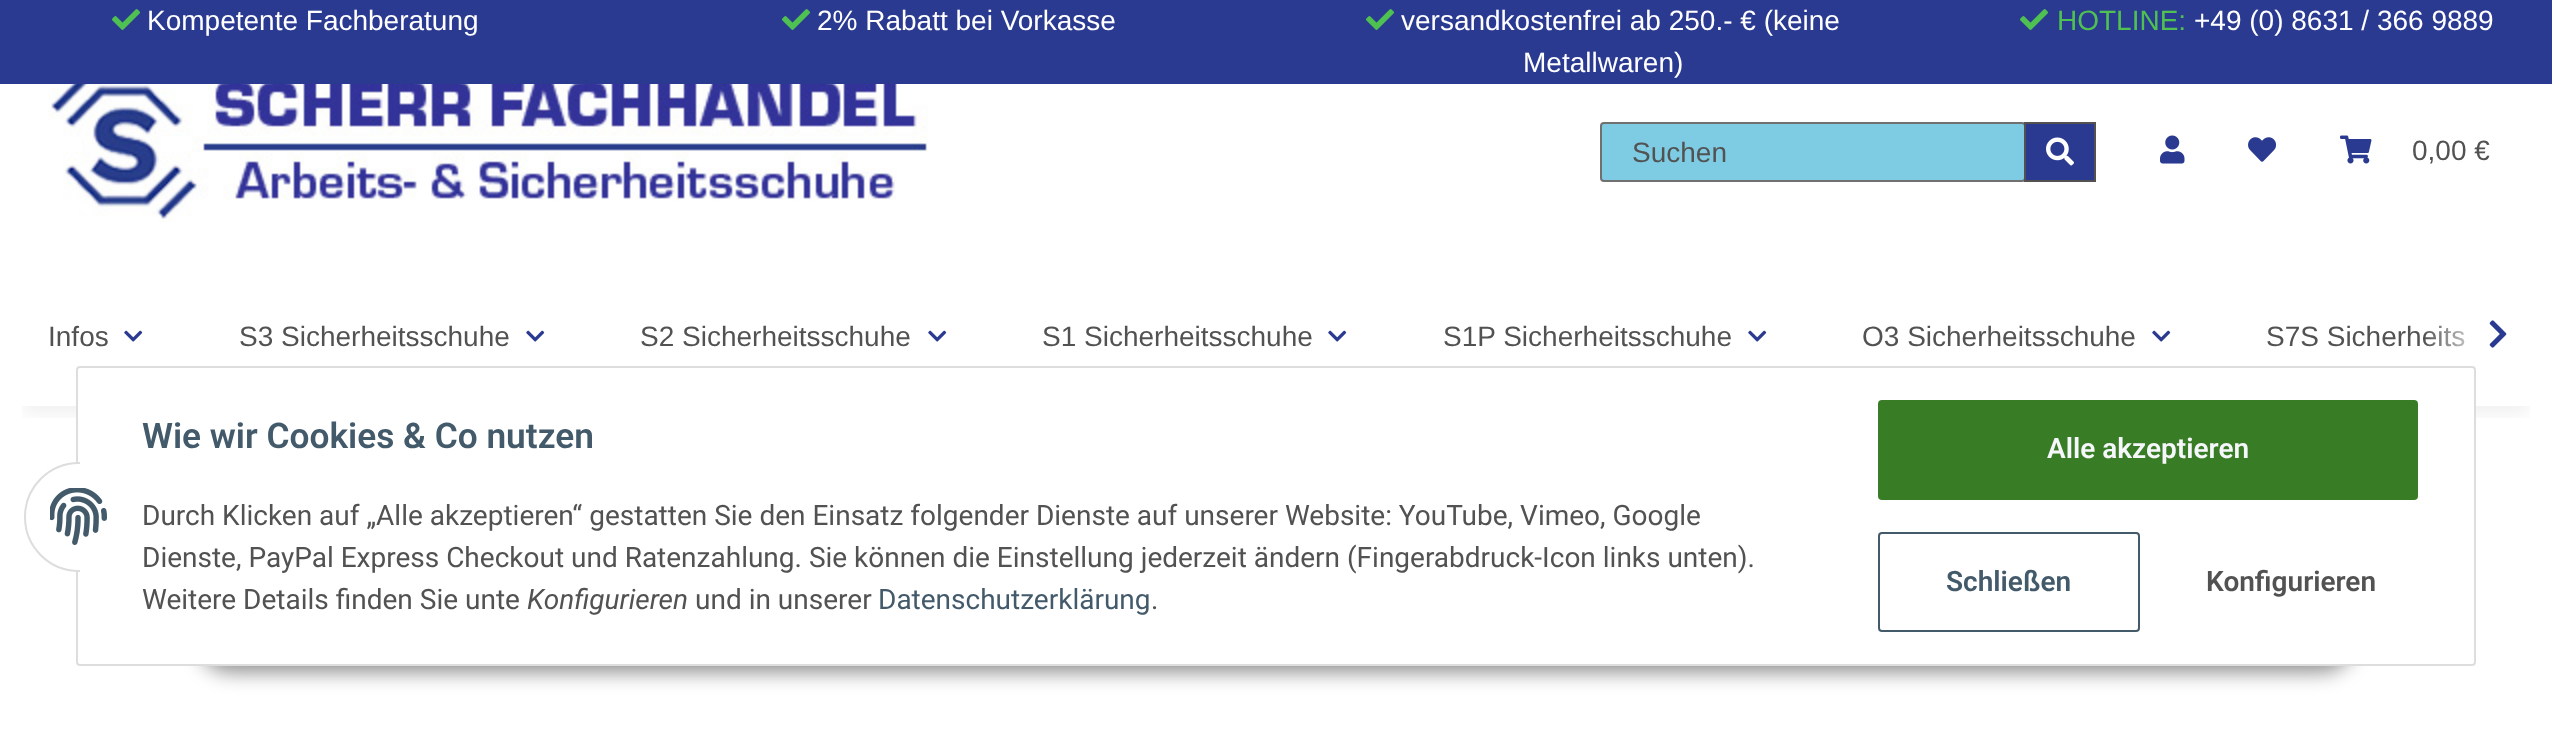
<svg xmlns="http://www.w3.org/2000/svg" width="2552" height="729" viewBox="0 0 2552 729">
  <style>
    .t1 { font: 28px Liberation Sans; fill: #fff; }
    .t2 { font: 28px Liberation Sans; fill: #4fc152; }
    .t3 { font: 28px Liberation Sans; fill: #525252; }
    .t4 { font: 600 35.25px Roboto; fill: #435a6b; }
    .t5 { font: 28px Roboto; fill: #525252; }
    .t6 { font: italic 28px Roboto; fill: #525252; }
    .t7 { font: 28px Roboto; fill: #435a6b; }
    .t8 { font: 600 28px Roboto; fill: #f5f7fa; }
    .t9 { font: 600 28px Roboto; fill: #435a6b; }
    .t10 { font: 600 28px Roboto; fill: #525252; }
  </style>
  <defs>
    <clipPath id="clip1"><rect x="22" y="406" width="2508" height="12"/></clipPath>
    <linearGradient id="g1" gradientUnits="userSpaceOnUse" x1="2424" y1="336" x2="2520" y2="336"><stop offset="0" stop-color="#fff" stop-opacity="0.01"/><stop offset="0.7" stop-color="#fff"/></linearGradient>
  </defs>
  <rect width="100%" height="100%" fill="#fff"/>
  <g clip-path="url(#clip1)">
    <rect x="24" y="98" width="2504" height="316" fill="#0000000f" filter="blur(9px)"/>
  </g>
  <rect x="0" y="0" width="2552" height="84" fill="#2a3a91"/>
  <image x="112" y="9" width="28" height="21" href="images/1.png"/>
  <text x="147" y="30" class="t1">Kompetente Fachberatung</text>
  <image x="782" y="9" width="28" height="21" href="images/1.png"/>
  <text x="817" y="30" class="t1">2% Rabatt bei Vorkasse</text>
  <image x="1366" y="9" width="28" height="21" href="images/1.png"/>
  <text x="1401" y="30" class="t1">versandkostenfrei ab 250.- € (keine</text>
  <text x="1523" y="72" class="t1">Metallwaren)</text>
  <image x="2020" y="9" width="28" height="21" href="images/1.png"/>
  <text x="2057" y="30" class="t2">HOTLINE:</text>
  <text x="2194" y="30" class="t1">+49 (0) 8631 / 366 9889</text>
  <image x="48" y="84" width="880" height="138" href="images/2.png"/>
  <rect x="1601" y="123" width="424" height="58" rx="3" fill="#7ecce3" stroke="#707070" stroke-width="2"/>
  <text x="1632" y="162" class="t3">Suchen</text>
  <rect x="2025" y="123" width="70" height="58" fill="#2a3a91" stroke="#525252" stroke-width="2"/>
  <image x="2046" y="137" width="28" height="29" href="images/3.png"/>
  <image x="2160" y="135" width="25" height="29" href="images/4.png"/>
  <image x="2248" y="137" width="29" height="25" href="images/5.png"/>
  <image x="2340" y="135" width="32" height="29" href="images/6.png"/>
  <text x="2412" y="160" class="t3">0,00 €</text>
  <text x="48" y="346" class="t3">Infos</text>
  <image x="124" y="330" width="19" height="12" href="images/7.png"/>
  <text x="239" y="346" class="t3">S3 Sicherheitsschuhe</text>
  <image x="526" y="330" width="19" height="12" href="images/7.png"/>
  <text x="640" y="346" class="t3">S2 Sicherheitsschuhe</text>
  <image x="928" y="330" width="19" height="12" href="images/7.png"/>
  <text x="1042" y="346" class="t3">S1 Sicherheitsschuhe</text>
  <image x="1328" y="330" width="19" height="12" href="images/7.png"/>
  <text x="1443" y="346" class="t3">S1P Sicherheitsschuhe</text>
  <image x="1748" y="330" width="19" height="12" href="images/7.png"/>
  <text x="1862" y="346" class="t3">O3 Sicherheitsschuhe</text>
  <image x="2152" y="330" width="19" height="12" href="images/7.png"/>
  <text x="2266" y="346" class="t3">S7S Sicherheits</text>
  <rect x="2425" y="325" width="40" height="22" fill="url(#g1)"/>
  <image x="2489" y="320" width="18" height="28" href="images/8.png"/>
  <rect x="198" y="608" width="2156" height="64" rx="32" fill="#00000073" filter="blur(10px)"/>
  <rect x="77" y="367" width="2398" height="298" rx="3" fill="#fff" stroke="#ddd" stroke-width="2"/>
  <circle cx="79" cy="517" r="54" fill="#fff" stroke="#ddd" stroke-width="2"/>
  <rect x="80" y="462" width="54" height="110" fill="#fff"/>
  <image x="50" y="488" width="57" height="57" href="images/9.png"/>
  <text x="142" y="448" class="t4">Wie wir Cookies &amp; Co nutzen</text>
  <text x="142" y="525" class="t5">Durch Klicken auf „Alle akzeptieren“ gestatten Sie den Einsatz folgender Dienste auf unserer Website: YouTube, Vimeo, Google</text>
  <text x="142" y="567" class="t5">Dienste, PayPal Express Checkout und Ratenzahlung. Sie können die Einstellung jederzeit ändern (Fingerabdruck-Icon links unten).</text>
  <text x="142" y="609" class="t5">Weitere Details finden Sie unte</text>
  <text x="527" y="609" class="t6">Konfigurieren</text>
  <text x="695" y="609" class="t5">und in unserer</text>
  <text x="878" y="609" class="t7">Datenschutzerklärung</text>
  <text x="1151" y="609" class="t5">.</text>
  <rect x="1879" y="401" width="538" height="98" rx="3" fill="#397c26" stroke="#397c26" stroke-width="2"/>
  <text x="2047" y="458" class="t8">Alle akzeptieren</text>
  <rect x="1879" y="533" width="260" height="98" rx="3" fill="none" stroke="#435a6b" stroke-width="2"/>
  <text x="1946" y="591" class="t9">Schließen</text>
  <text x="2206" y="591" class="t10">Konfigurieren</text>
</svg>
